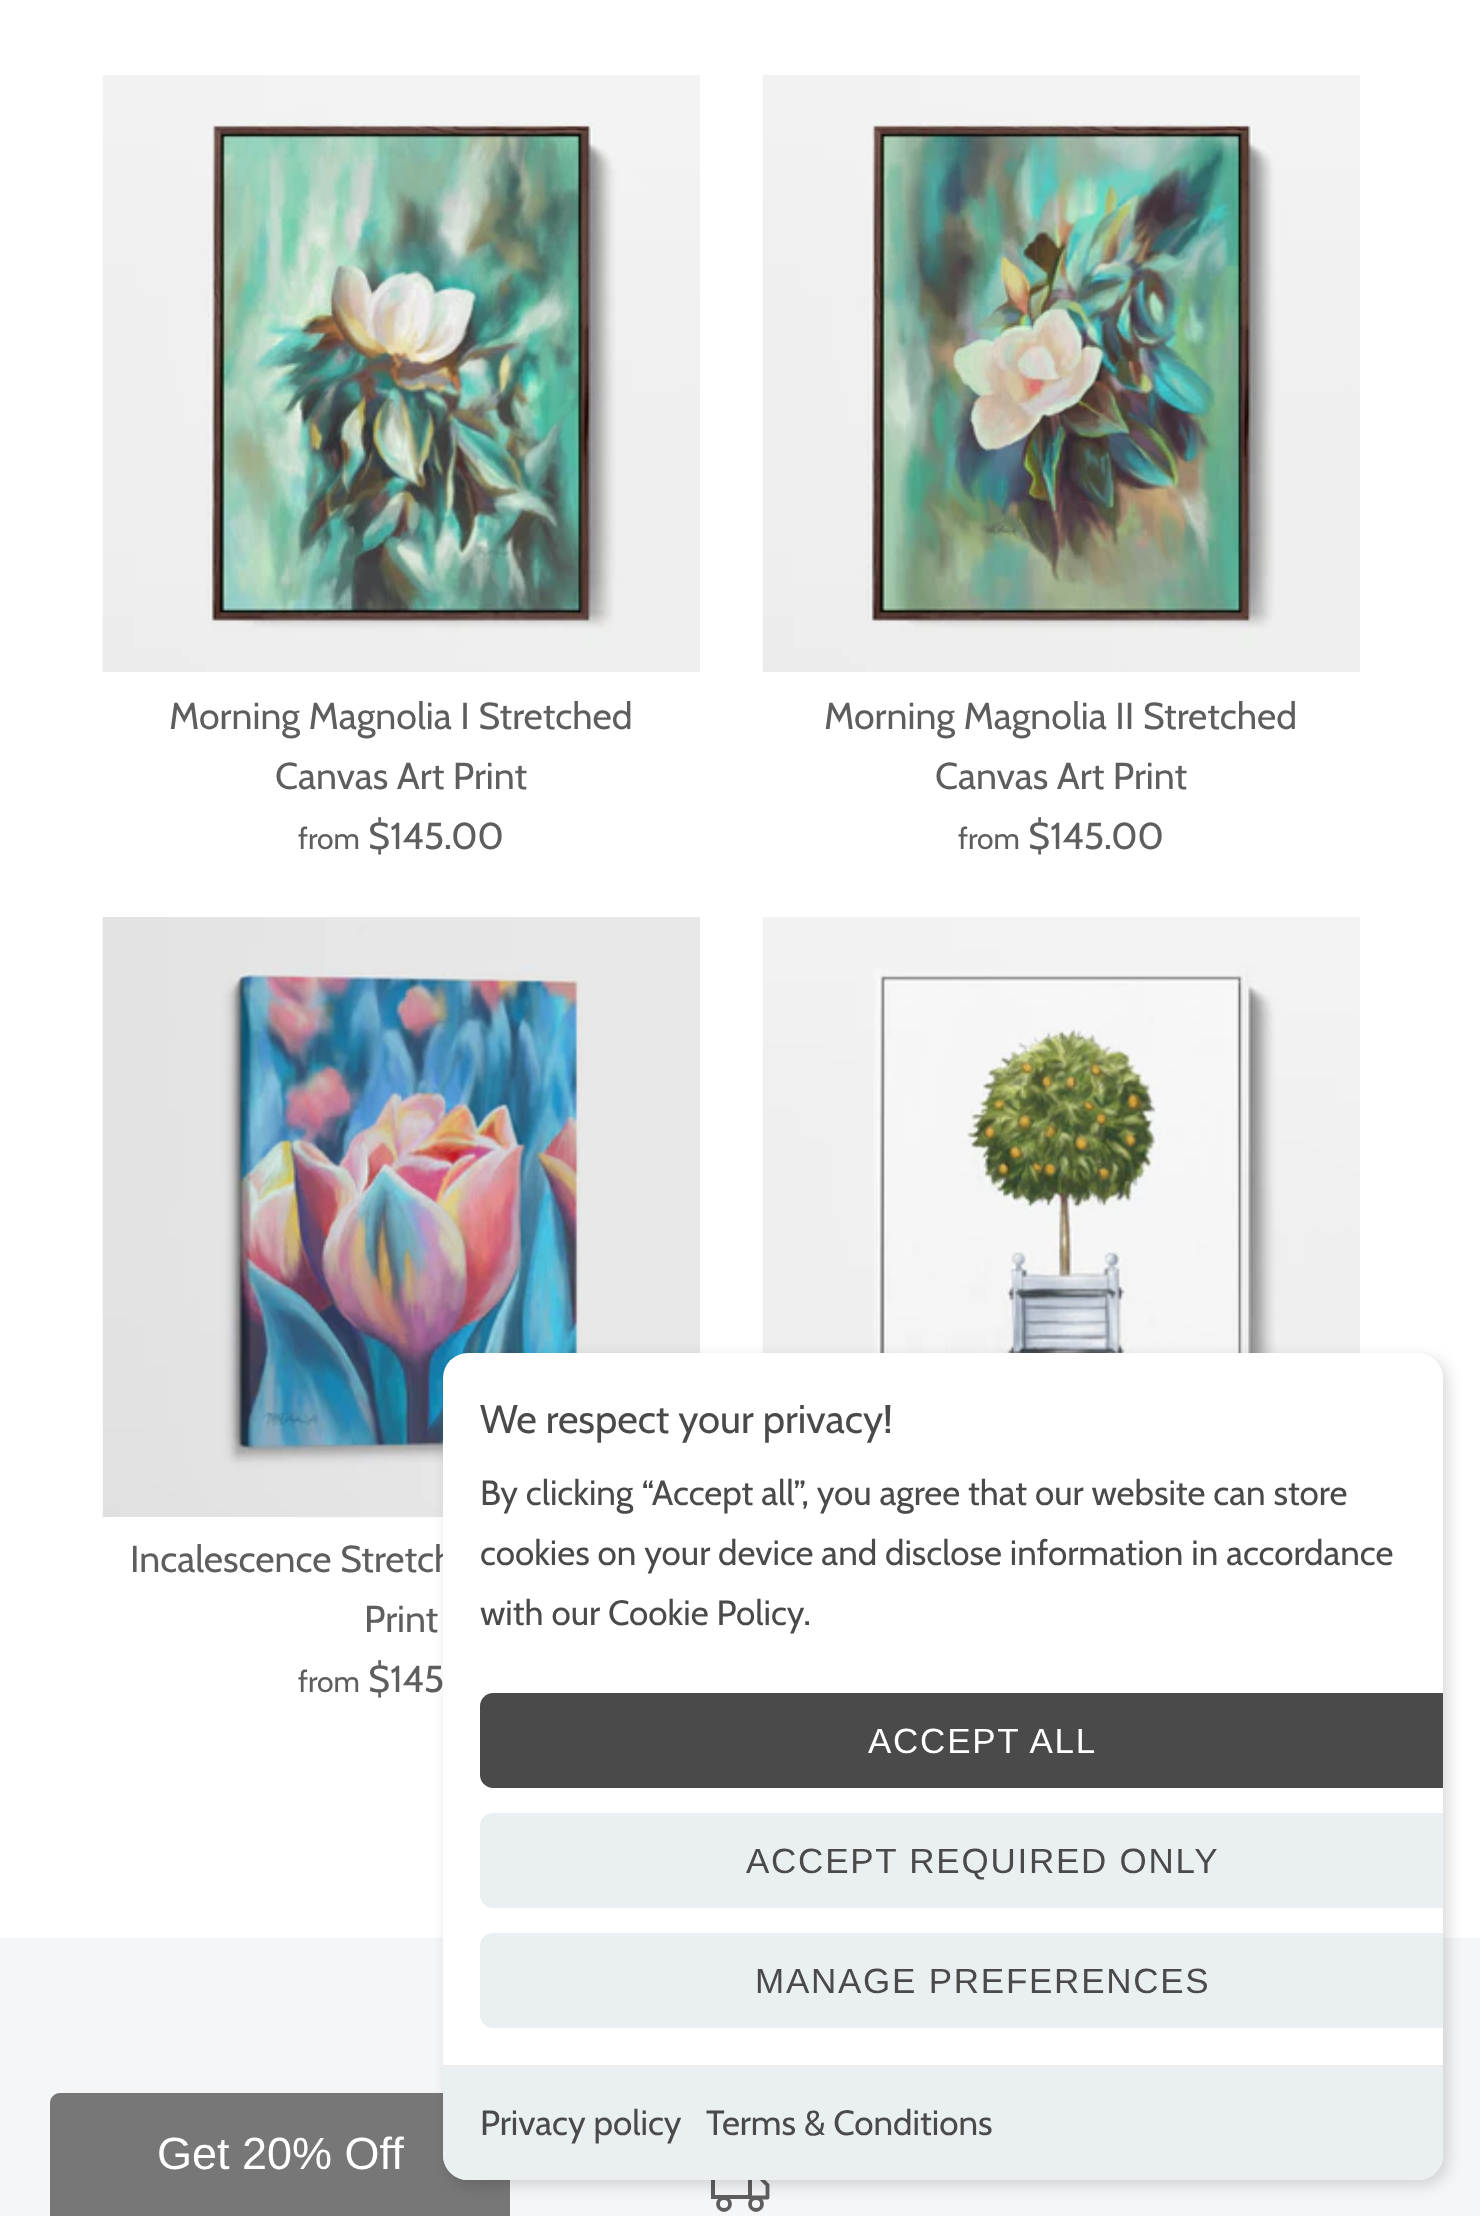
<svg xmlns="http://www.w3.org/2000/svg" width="1480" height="2216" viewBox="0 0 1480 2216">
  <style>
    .t1 { font: 37.5px Cabin; fill: #5e5e5e; }
    .t2 { font: 30px Cabin; fill: #5e5e5e; }
    .t3 { font: 40px Cabin; fill: #4a4a4a; }
    .t4 { font: 35px Cabin; fill: #4a4a4a; }
    .t5 { font: 35px Liberation Sans; letter-spacing: 1.75px; fill: #fff; }
    .t6 { font: 35px Liberation Sans; letter-spacing: 1.75px; fill: #4a4a4a; }
    .t7 { font: 45px Liberation Sans; fill: #fff; }
  </style>
  <defs>
    <clipPath id="clip1"><rect x="443" y="1353" width="1000" height="827" rx="25"/></clipPath>
  </defs>
  <rect width="100%" height="100%" fill="#fff"/>
  <image x="102" y="75" width="598" height="597" href="images/1.png"/>
  <text x="169" y="729" class="t1">Morning Magnolia I Stretched</text>
  <text x="275" y="789" class="t1">Canvas Art Print</text>
  <text x="298" y="849" class="t2">from</text>
  <text x="368" y="849" class="t1">$145.00</text>
  <image x="762" y="75" width="598" height="597" href="images/2.png"/>
  <text x="824" y="729" class="t1">Morning Magnolia II Stretched</text>
  <text x="935" y="789" class="t1">Canvas Art Print</text>
  <text x="958" y="849" class="t2">from</text>
  <text x="1028" y="849" class="t1">$145.00</text>
  <image x="762" y="917" width="598" height="436" href="images/3.png"/>
  <image x="102" y="917" width="598" height="600" href="images/4.png"/>
  <text x="130" y="1572" class="t1">Incalescence Stretch</text>
  <text x="364" y="1632" class="t1">Print</text>
  <text x="298" y="1692" class="t2">from</text>
  <text x="368" y="1692" class="t1">$145</text>
  <rect x="0" y="1938" width="1480" height="278" fill="#f4f6f8"/>
  <rect x="713" y="2165" width="37" height="32" fill="none" stroke="#5e5e5e" stroke-width="4"/>
  <path d="M750 2177.5H760L767.5 2185V2197.5H750Z" fill="none" stroke="#5e5e5e" stroke-width="3.8" stroke-linecap="round" stroke-linejoin="round"/>
  <circle cx="724" cy="2204" r="6" fill="none" stroke="#5e5e5e" stroke-width="3.8"/>
  <circle cx="756" cy="2204" r="6" fill="none" stroke="#5e5e5e" stroke-width="3.8"/>
  <path d="M60 2093H500C505.5 2093 510 2097.5 510 2103V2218H50V2103C50 2097.5 54.5 2093 60 2093Z" fill="#777"/>
  <rect x="448" y="1358" width="1000" height="827" rx="25" fill="#00000026" filter="blur(7.5px)"/>
  <rect x="443" y="1353" width="1000" height="827" rx="25" fill="#fff"/>
  <text x="480" y="1433" class="t3">We respect your privacy!</text>
  <text x="480" y="1505" class="t4">By clicking “Accept all”, you agree that our website can store</text>
  <text x="480" y="1565" class="t4">cookies on your device and disclose information in accordance</text>
  <text x="480" y="1625" class="t4">with our Cookie Policy.</text>
  <path d="M493 1693H1443V1788H493C486 1788 480 1782 480 1775V1706C480 1699 486 1693 493 1693Z" fill="#4a4a4a"/>
  <text x="868" y="1753" class="t5">ACCEPT ALL</text>
  <path d="M493 1813H1443V1908H493C486 1908 480 1902 480 1895V1826C480 1819 486 1813 493 1813Z" fill="#eaeff2"/>
  <text x="746" y="1873" class="t6">ACCEPT REQUIRED ONLY</text>
  <path d="M493 1933H1443V2028H493C486 2028 480 2022 480 2015V1946C480 1939 486 1933 493 1933Z" fill="#eaeff2"/>
  <text x="755" y="1993" class="t6">MANAGE PREFERENCES</text>
  <path d="M443 2065H1443V2155C1443 2169 1432 2180 1418 2180H468C454 2180 443 2169 443 2155Z" fill="#eaeff2"/>
  <rect x="443" y="2065" width="1000" height="3" fill="#eee"/>
  <g clip-path="url(#clip1)">
    <rect x="458" y="2178" width="970" height="2" fill="#eee"/>
  </g>
  <text x="480" y="2135" class="t4">Privacy policy</text>
  <text x="706" y="2135" class="t4">Terms &amp; Conditions</text>
  <text x="157" y="2169" class="t7">Get 20% Off</text>
</svg>
